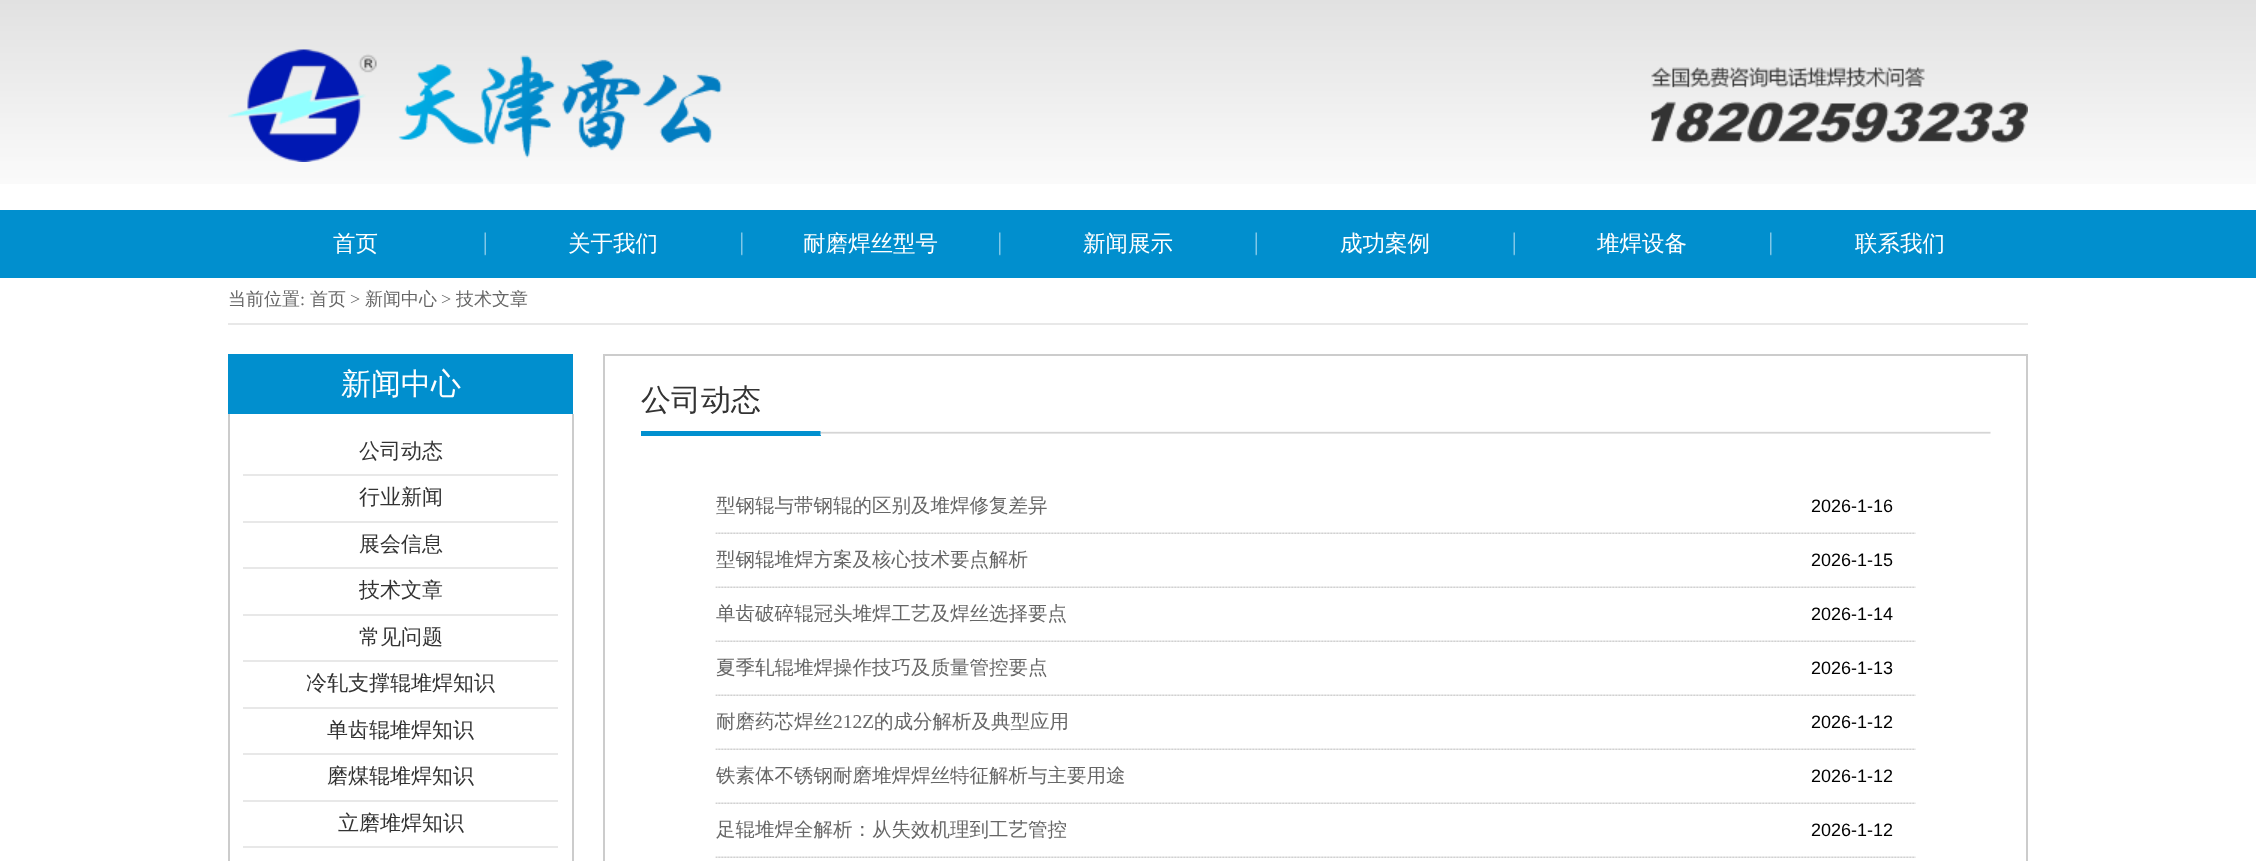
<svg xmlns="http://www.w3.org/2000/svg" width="2256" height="861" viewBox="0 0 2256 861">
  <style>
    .t1 { font: 500 22.5px WenQuanYi Zen Hei; fill: #fff; }
    .t2 { font: 500 18px WenQuanYi Zen Hei; fill: #666; }
    .t3 { font: 18px Liberation Serif; fill: #666; }
    .t4 { font: 500 30px WenQuanYi Zen Hei; fill: #fff; }
    .t5 { font: 500 21px WenQuanYi Zen Hei; fill: #333; }
    .t6 { font: 500 30px WenQuanYi Zen Hei; fill: #333; }
    .t7 { font: 500 19.5px WenQuanYi Zen Hei; fill: #666; }
    .t8 { font: 18px Liberation Sans; fill: #000; }
    .t9 { font: 19.5px Liberation Serif; fill: #666; }
  </style>
  <rect width="100%" height="100%" fill="#fff"/>
  <image x="0" y="0" width="2256" height="184" href="images/1.png"/>
  <image x="228" y="49" width="494" height="113" href="images/2.png"/>
  <image x="1651" y="67" width="377" height="76" href="images/3.png"/>
  <rect x="0" y="210" width="2256" height="68" fill="#018fce"/>
  <text x="333" y="251" class="t1">首页</text>
  <image x="484" y="232" width="2" height="24" href="images/4.png"/>
  <text x="568" y="251" class="t1">关于我们</text>
  <image x="741" y="232" width="2" height="24" href="images/5.png"/>
  <text x="803" y="251" class="t1">耐磨焊丝型号</text>
  <image x="999" y="232" width="2" height="24" href="images/5.png"/>
  <text x="1083" y="251" class="t1">新闻展示</text>
  <image x="1255" y="232" width="2" height="24" href="images/4.png"/>
  <text x="1340" y="251" class="t1">成功案例</text>
  <image x="1513" y="232" width="2" height="24" href="images/4.png"/>
  <text x="1597" y="251" class="t1">堆焊设备</text>
  <image x="1770" y="232" width="2" height="24" href="images/5.png"/>
  <text x="1855" y="251" class="t1">联系我们</text>
  <rect x="228" y="323" width="1800" height="2" fill="#e8e8e8"/>
  <text x="228" y="305" class="t2">当前位置</text>
  <text x="300" y="305" class="t3">:</text>
  <text x="310" y="305" class="t2">首页</text>
  <text x="350" y="305" class="t3">&gt;</text>
  <text x="365" y="305" class="t2">新闻中心</text>
  <text x="441" y="305" class="t3">&gt;</text>
  <text x="456" y="305" class="t2">技术文章</text>
  <rect x="228" y="354" width="345" height="60" fill="#018fce"/>
  <text x="341" y="394" class="t4">新闻中心</text>
  <rect x="572" y="414" width="2" height="447" fill="#ccc"/>
  <rect x="228" y="414" width="2" height="447" fill="#ccc"/>
  <rect x="243" y="474" width="315" height="2" fill="#e8e8e8"/>
  <text x="359" y="458" class="t5">公司动态</text>
  <rect x="243" y="521" width="315" height="2" fill="#e8e8e8"/>
  <text x="359" y="504" class="t5">行业新闻</text>
  <rect x="243" y="567" width="315" height="2" fill="#e8e8e8"/>
  <text x="359" y="551" class="t5">展会信息</text>
  <rect x="243" y="614" width="315" height="2" fill="#e8e8e8"/>
  <text x="359" y="597" class="t5">技术文章</text>
  <rect x="243" y="660" width="315" height="2" fill="#e8e8e8"/>
  <text x="359" y="644" class="t5">常见问题</text>
  <rect x="243" y="707" width="315" height="2" fill="#e8e8e8"/>
  <text x="306" y="690" class="t5">冷轧支撑辊堆焊知识</text>
  <rect x="243" y="753" width="315" height="2" fill="#e8e8e8"/>
  <text x="327" y="737" class="t5">单齿辊堆焊知识</text>
  <rect x="243" y="800" width="315" height="2" fill="#e8e8e8"/>
  <text x="327" y="783" class="t5">磨煤辊堆焊知识</text>
  <rect x="243" y="846" width="315" height="2" fill="#e8e8e8"/>
  <text x="338" y="830" class="t5">立磨堆焊知识</text>
  <rect x="604" y="355" width="1423" height="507" fill="none" stroke="#ccc" stroke-width="2"/>
  <text x="641" y="410" class="t6">公司动态</text>
  <rect x="641" y="431" width="180" height="5" fill="#0190cf"/>
  <image x="820" y="431" width="1171" height="4" href="images/6.png"/>
  <text x="716" y="512" class="t7">型钢辊与带钢辊的区别及堆焊修复差异</text>
  <text x="1811" y="512" class="t8">2026-1-16</text>
  <image x="715" y="532" width="1096" height="2" href="images/7.png"/>
  <image x="1810" y="532" width="106" height="2" href="images/8.png"/>
  <text x="716" y="566" class="t7">型钢辊堆焊方案及核心技术要点解析</text>
  <text x="1811" y="566" class="t8">2026-1-15</text>
  <image x="715" y="586" width="1096" height="2" href="images/7.png"/>
  <image x="1810" y="586" width="106" height="2" href="images/8.png"/>
  <text x="716" y="620" class="t7">单齿破碎辊冠头堆焊工艺及焊丝选择要点</text>
  <text x="1811" y="620" class="t8">2026-1-14</text>
  <image x="715" y="640" width="1096" height="2" href="images/7.png"/>
  <image x="1810" y="640" width="106" height="2" href="images/8.png"/>
  <text x="716" y="674" class="t7">夏季轧辊堆焊操作技巧及质量管控要点</text>
  <text x="1811" y="674" class="t8">2026-1-13</text>
  <image x="715" y="694" width="1096" height="2" href="images/7.png"/>
  <image x="1810" y="694" width="106" height="2" href="images/8.png"/>
  <text x="716" y="728" class="t7">耐磨药芯焊丝</text>
  <text x="833" y="728" class="t9">212Z</text>
  <text x="874" y="728" class="t7">的成分解析及典型应用</text>
  <text x="1811" y="728" class="t8">2026-1-12</text>
  <image x="715" y="748" width="1096" height="2" href="images/7.png"/>
  <image x="1810" y="748" width="106" height="2" href="images/8.png"/>
  <text x="716" y="782" class="t7">铁素体不锈钢耐磨堆焊焊丝特征解析与主要用途</text>
  <text x="1811" y="782" class="t8">2026-1-12</text>
  <image x="715" y="802" width="1096" height="2" href="images/7.png"/>
  <image x="1810" y="802" width="106" height="2" href="images/8.png"/>
  <text x="716" y="836" class="t7">足辊堆焊全解析：从失效机理到工艺管控</text>
  <text x="1811" y="836" class="t8">2026-1-12</text>
  <image x="715" y="856" width="1096" height="2" href="images/7.png"/>
  <image x="1810" y="856" width="106" height="2" href="images/8.png"/>
</svg>
